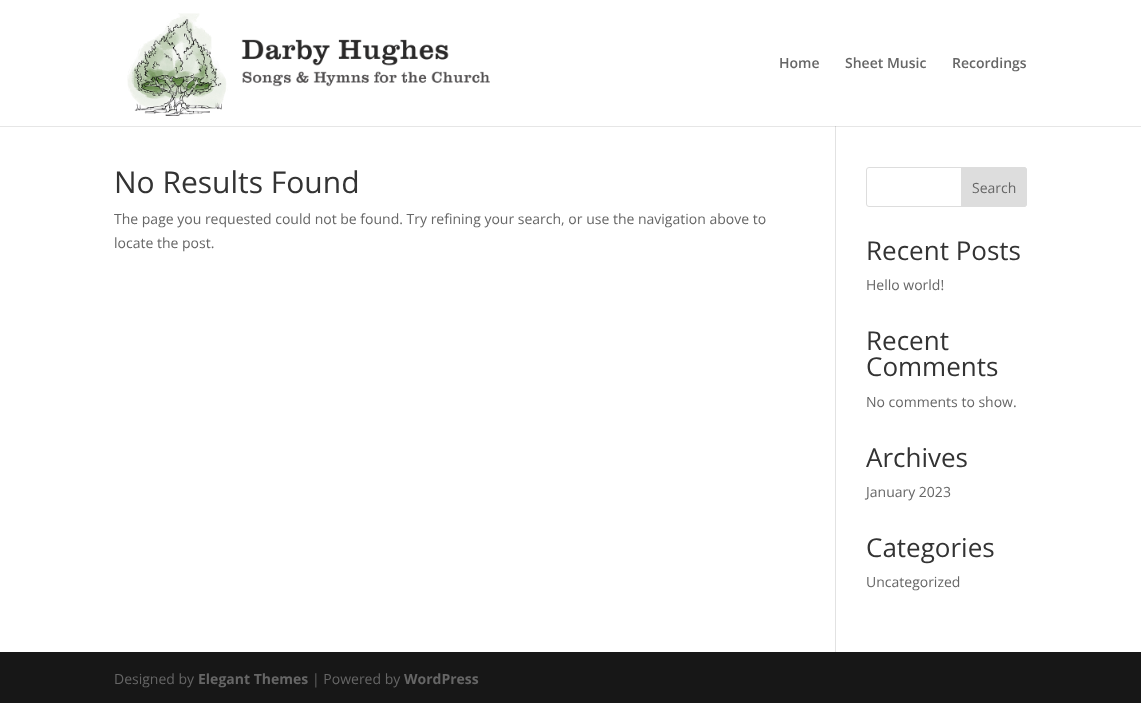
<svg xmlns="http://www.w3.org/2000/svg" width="1141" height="703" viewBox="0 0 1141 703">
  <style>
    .t1 { font: 600 14px Open Sans; fill: #666; }
    .t2 { font: 30px Open Sans; fill: #333; }
    .t3 { font: 14px Open Sans; fill: #666; }
    .t4 { font: 26px Open Sans; fill: #333; }
    .t5 { font: bold 14px Open Sans; fill: #666; }
  </style>
  <rect width="100%" height="100%" fill="#fff"/>
  <rect x="0" y="126" width="1141" height="1" fill="#e6e6e6"/>
  <image x="127" y="13" width="363" height="103" href="images/1.png"/>
  <text x="779" y="68" class="t1">Home</text>
  <text x="845" y="68" class="t1">Sheet Music</text>
  <text x="952" y="68" class="t1">Recordings</text>
  <rect x="835" y="127" width="1" height="525" fill="#e2e2e2"/>
  <rect x="835" y="126" width="1" height="1" fill="#cbcbcb"/>
  <text x="114" y="193" class="t2">No Results Found</text>
  <text x="114" y="224" class="t3">The page you requested could not be found. Try refining your search, or use the navigation above to</text>
  <text x="114" y="248" class="t3">locate the post.</text>
  <rect x="866.5" y="167.5" width="160" height="39" rx="2.5" fill="none" stroke="#ddd"/>
  <path d="M961.5 167.5H1024C1025.5 167.5 1026.5 168.5 1026.5 170V204C1026.5 205.5 1025.5 206.5 1024 206.5H961.5Z" fill="#ddd" stroke="#ddd"/>
  <text x="972" y="193" class="t3">Search</text>
  <text x="866" y="260" class="t4">Recent Posts</text>
  <text x="866" y="290" class="t3">Hello world!</text>
  <text x="866" y="350" class="t4">Recent</text>
  <text x="866" y="376" class="t4">Comments</text>
  <text x="866" y="407" class="t3">No comments to show.</text>
  <text x="866" y="467" class="t4">Archives</text>
  <text x="866" y="497" class="t3">January 2023</text>
  <text x="866" y="557" class="t4">Categories</text>
  <text x="866" y="587" class="t3">Uncategorized</text>
  <rect x="0" y="652" width="1141" height="51" fill="#171717"/>
  <text x="114" y="684" class="t3">Designed by</text>
  <text x="198" y="684" class="t5">Elegant Themes</text>
  <text x="312" y="684" class="t3">| Powered by</text>
  <text x="404" y="684" class="t5">WordPress</text>
</svg>
